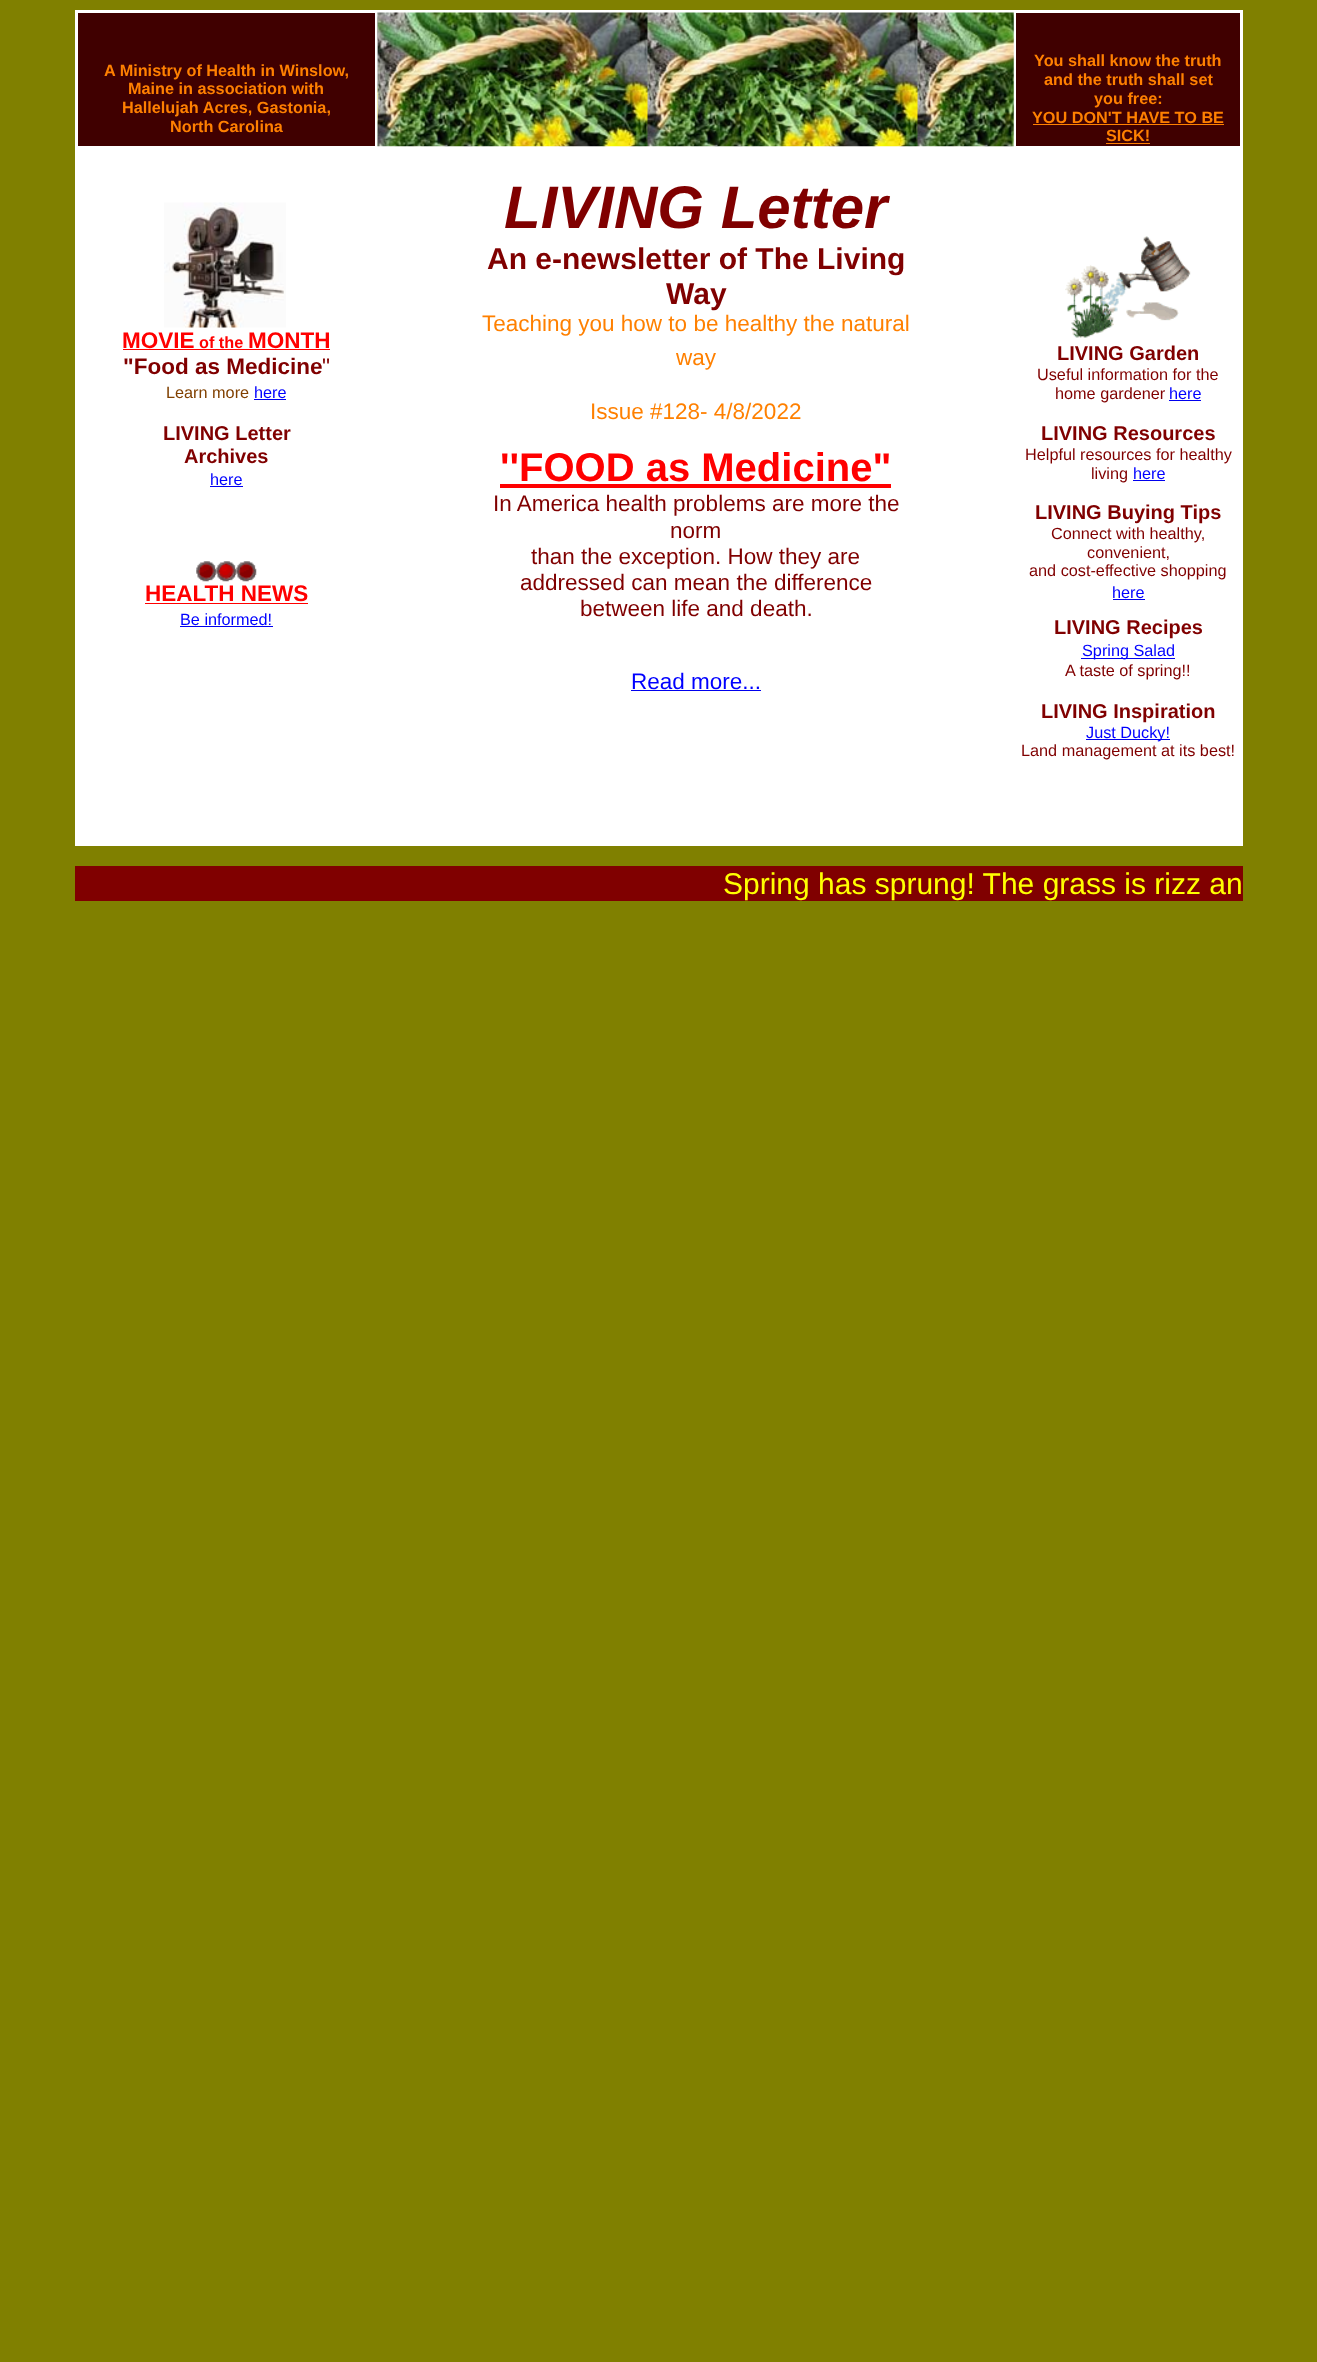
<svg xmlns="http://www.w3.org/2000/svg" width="1317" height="2362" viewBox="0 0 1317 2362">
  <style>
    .t1 { font: bold 16.25px Liberation Sans; fill: #ff8000; }
    .t2 { font: bold 22.5px Liberation Sans; fill: #f00; }
    .t3 { font: bold 16.25px Liberation Sans; fill: #f00; }
    .t4 { font: bold 22.5px Liberation Sans; fill: #800000; }
    .t5 { font: 22.5px Liberation Sans; fill: #800000; }
    .t6 { font: 16.25px Liberation Sans; fill: #804000; }
    .t7 { font: 16.25px Liberation Sans; fill: #00f; }
    .t8 { font: bold 20px Liberation Sans; fill: #800000; }
    .t9 { font: italic bold 60px Liberation Sans; fill: #800000; }
    .t10 { font: bold 30px Liberation Sans; fill: #800000; }
    .t11 { font: 22.5px Liberation Sans; fill: #ff8000; }
    .t12 { font: bold 40px Liberation Sans; fill: #f00; }
    .t13 { font: 22.5px Liberation Sans; fill: #00f; }
    .t14 { font: 16.25px Liberation Sans; fill: #800000; }
    .t15 { font: 30px Liberation Sans; fill: #ff0; }
  </style>
  <rect width="100%" height="100%" fill="#808000"/>
  <rect x="75" y="10" width="1168" height="836" fill="#fff"/>
  <rect x="78" y="13" width="297" height="133" fill="#400000"/>
  <text x="104" y="76" class="t1">A Ministry of Health in Winslow,</text>
  <text x="128" y="94" class="t1">Maine in association with</text>
  <text x="122" y="113" class="t1">Hallelujah Acres, Gastonia,</text>
  <text x="170" y="132" class="t1">North Carolina</text>
  <image x="377" y="12" width="637" height="135" href="images/1.png"/>
  <rect x="1016" y="13" width="224" height="133" fill="#400000"/>
  <text x="1034" y="66" class="t1">You shall know the truth</text>
  <text x="1044" y="85" class="t1">and the truth shall set</text>
  <text x="1094" y="104" class="t1">you free:</text>
  <text x="1032" y="123" class="t1">YOU DON'T HAVE TO BE</text>
  <rect x="1033" y="124" width="191" height="1" fill="#ff8000"/>
  <text x="1106" y="141" class="t1">SICK!</text>
  <rect x="1106" y="143" width="44" height="1" fill="#ff8000"/>
  <image x="164" y="202" width="122" height="126" href="images/2.png"/>
  <text x="122" y="348" class="t2">MOVIE</text>
  <rect x="123" y="349" width="207" height="1" fill="#f00"/>
  <text x="199" y="348" class="t3">of the</text>
  <text x="248" y="348" class="t2">MONTH</text>
  <text x="123" y="374" class="t4">"Food as Medicine</text>
  <text x="322" y="374" class="t5">"</text>
  <text x="166" y="398" class="t6">Learn more</text>
  <text x="254" y="398" class="t7">here</text>
  <rect x="254" y="399" width="32" height="1" fill="#00e"/>
  <text x="163" y="440" class="t8">LIVING Letter</text>
  <text x="184" y="463" class="t8">Archives</text>
  <text x="210" y="485" class="t7">here</text>
  <rect x="210" y="486" width="33" height="1" fill="#00e"/>
  <image x="196" y="561" width="21" height="21" href="images/3.png"/>
  <image x="216" y="561" width="21" height="21" href="images/4.png"/>
  <image x="236" y="561" width="21" height="21" href="images/5.png"/>
  <text x="145" y="601" class="t2">HEALTH NEWS</text>
  <rect x="145" y="603" width="163" height="1" fill="#f00"/>
  <text x="180" y="625" class="t7">Be informed!</text>
  <rect x="180" y="626" width="93" height="1" fill="#00e"/>
  <text x="504" y="228" class="t9">LIVING Letter</text>
  <text x="487" y="269" class="t10">An e-newsletter of The Living</text>
  <text x="666" y="304" class="t10">Way</text>
  <text x="482" y="331" class="t11">Teaching you how to be healthy the natural</text>
  <text x="676" y="365" class="t11">way</text>
  <text x="590" y="419" class="t11">Issue #128- 4/8/2022</text>
  <text x="500" y="481" class="t12">''FOOD as Medicine"</text>
  <rect x="500" y="484" width="391" height="4" fill="#f00"/>
  <text x="493" y="511" class="t5">In America health problems are more the</text>
  <text x="670" y="538" class="t5">norm</text>
  <text x="531" y="564" class="t5">than the exception. How they are</text>
  <text x="520" y="590" class="t5">addressed can mean the difference</text>
  <text x="580" y="616" class="t5">between life and death.</text>
  <text x="631" y="689" class="t13">Read more...</text>
  <rect x="631" y="690" width="130" height="1" fill="#00e"/>
  <image x="1065" y="236" width="126" height="102" href="images/6.png"/>
  <text x="1057" y="360" class="t8">LIVING Garden</text>
  <text x="1037" y="380" class="t14">Useful information for the</text>
  <text x="1055" y="399" class="t14">home gardener</text>
  <text x="1169" y="399" class="t7">here</text>
  <rect x="1169" y="400" width="32" height="1" fill="#00e"/>
  <text x="1041" y="440" class="t8">LIVING Resources</text>
  <text x="1025" y="460" class="t14">Helpful resources for healthy</text>
  <text x="1091" y="479" class="t14">living</text>
  <text x="1133" y="479" class="t7">here</text>
  <rect x="1133" y="480" width="32" height="1" fill="#00e"/>
  <text x="1035" y="519" class="t8">LIVING Buying Tips</text>
  <text x="1051" y="539" class="t14">Connect with healthy,</text>
  <text x="1087" y="558" class="t14">convenient,</text>
  <text x="1029" y="576" class="t14">and cost-effective shopping</text>
  <text x="1112" y="598" class="t7">here</text>
  <rect x="1113" y="599" width="32" height="1" fill="#00e"/>
  <text x="1054" y="634" class="t8">LIVING Recipes</text>
  <rect x="1081" y="658" width="94" height="1" fill="#00e"/>
  <text x="1082" y="656" class="t7">Spring Salad</text>
  <text x="1065" y="676" class="t14">A taste of spring!!</text>
  <text x="1041" y="718" class="t8">LIVING Inspiration</text>
  <rect x="1086" y="739" width="84" height="1" fill="#00e"/>
  <text x="1086" y="738" class="t7">Just Ducky!</text>
  <text x="1021" y="756" class="t14">Land management at its best!</text>
  <rect x="75" y="866" width="1168" height="35" fill="#800000"/>
  <text x="723" y="894" class="t15">Spring has sprung! The grass is rizz an</text>
</svg>
